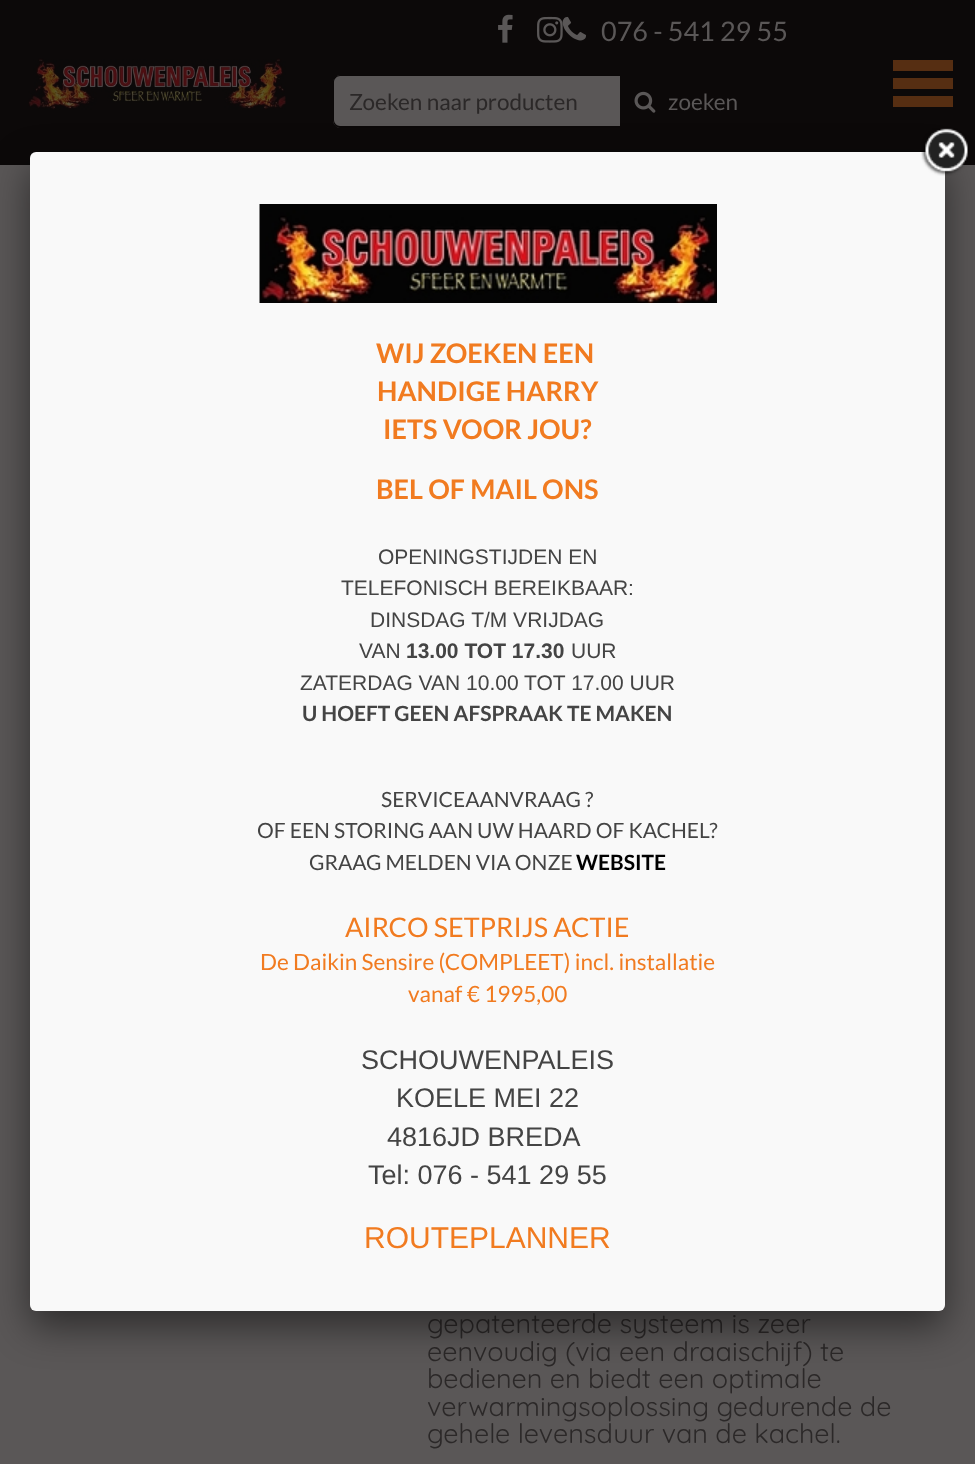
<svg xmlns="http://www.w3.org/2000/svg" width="975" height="1464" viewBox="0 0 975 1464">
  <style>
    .t1 { font: 27px Lato; fill: #5a5757; }
    .t2 { font: 22.5px Lato; fill: #2b2828; }
    .t3 { font: 22.5px Lato; fill: #5a5757; }
    .t4 { font: 27px Quicksand; fill: #2b2828; }
    .t5 { font: bold 27px Lato; fill: #f17b20; }
    .t6 { font: 21px Liberation Sans; fill: #444; }
    .t7 { font: bold 21px Liberation Sans; fill: #444; }
    .t8 { font: bold 21px Lato; fill: #444; }
    .t9 { font: 21px Lato; fill: #444; }
    .t10 { font: bold 21px Lato; fill: #000; }
    .t11 { font: 27px Lato; fill: #f17b20; }
    .t12 { font: 22.5px Lato; fill: #f17b20; }
    .t13 { font: 27px Liberation Sans; fill: #444; }
    .t14 { font: 30px Liberation Sans; fill: #f17b20; }
  </style>
  <rect width="100%" height="100%" fill="#5a5757"/>
  <rect x="0" y="0" width="975" height="165" fill="#0c0909"/>
  <image x="28" y="58" width="258" height="52" href="images/1.png"/>
  <image x="498" y="14" width="15" height="29" href="images/2.png"/>
  <image x="537" y="16" width="26" height="27" href="images/3.png"/>
  <image x="562" y="16" width="25" height="25" href="images/4.png"/>
  <text x="601" y="41" class="t1">076 - 541 29 55</text>
  <path d="M341 75H620V128H341C336.5 128 333 124.5 333 120V83C333 78.5 336.5 75 341 75Z" fill="#5a5757"/>
  <path d="M340 75H620V128H340C336 128 333 124 333 120V82C333 78 336 75 340 75ZM340 76H620V126H340C337 126 334 123 334 120V82C334 79 337 76 340 76Z" fill="#0b0808" fill-rule="evenodd"/>
  <text x="349" y="110" class="t2">Zoeken naar producten</text>
  <image x="634" y="91" width="22" height="22" href="images/5.png"/>
  <text x="668" y="110" class="t3">zoeken</text>
  <rect x="893" y="60" width="60" height="11" fill="#562e12"/>
  <rect x="893" y="78" width="60" height="11" fill="#562e12"/>
  <rect x="893" y="96" width="60" height="11" fill="#562e12"/>
  <text x="427" y="1333" class="t4">gepatenteerde systeem is zeer</text>
  <text x="427" y="1361" class="t4">eenvoudig (via een draaischijf) te</text>
  <text x="427" y="1388" class="t4">bedienen en biedt een optimale</text>
  <text x="427" y="1416" class="t4">verwarmingsoplossing gedurende de</text>
  <text x="427" y="1443" class="t4">gehele levensduur van de kachel.</text>
  <rect x="30" y="167" width="915" height="1159" rx="6" fill="#00000080" filter="blur(19px)"/>
  <rect x="30" y="152" width="915" height="1159" rx="6" fill="#f9f9f9"/>
  <image x="921" y="128" width="47" height="48" href="images/6.png"/>
  <image x="259" y="204" width="458" height="99" href="images/7.png"/>
  <text x="376" y="363" class="t5">WIJ ZOEKEN EEN</text>
  <text x="377" y="401" class="t5">HANDIGE HARRY</text>
  <text x="383" y="439" class="t5">IETS VOOR JOU?</text>
  <text x="376" y="499" class="t5">BEL OF MAIL ONS</text>
  <text x="378" y="564" class="t6">OPENINGSTIJDEN EN</text>
  <text x="341" y="595" class="t6">TELEFONISCH BEREIKBAAR:</text>
  <text x="370" y="627" class="t6">DINSDAG T/M VRIJDAG</text>
  <text x="359" y="658" class="t6">VAN</text>
  <text x="406" y="658" class="t7">13.00 TOT 17.30</text>
  <text x="571" y="658" class="t6">UUR</text>
  <text x="300" y="690" class="t6">ZATERDAG VAN 10.00 TOT 17.00 UUR</text>
  <text x="302" y="721" class="t8">U HOEFT GEEN AFSPRAAK TE MAKEN</text>
  <text x="381" y="807" class="t9">SERVICEAANVRAAG ?</text>
  <text x="257" y="838" class="t9">OF EEN STORING AAN UW HAARD OF KACHEL?</text>
  <text x="309" y="870" class="t9">GRAAG MELDEN VIA ONZE</text>
  <text x="576" y="870" class="t10">WEBSITE</text>
  <text x="345" y="937" class="t11">AIRCO SETPRIJS ACTIE</text>
  <text x="260" y="970" class="t12">De Daikin Sensire (COMPLEET) incl. installatie</text>
  <text x="408" y="1002" class="t12">vanaf € 1995,00</text>
  <text x="361" y="1069" class="t13">SCHOUWENPALEIS</text>
  <text x="396" y="1107" class="t13">KOELE MEI 22</text>
  <text x="387" y="1146" class="t13">4816JD BREDA</text>
  <text x="368" y="1184" class="t13">Tel: 076 - 541 29 55</text>
  <text x="364" y="1248" class="t14">ROUTEPLANNER</text>
</svg>
